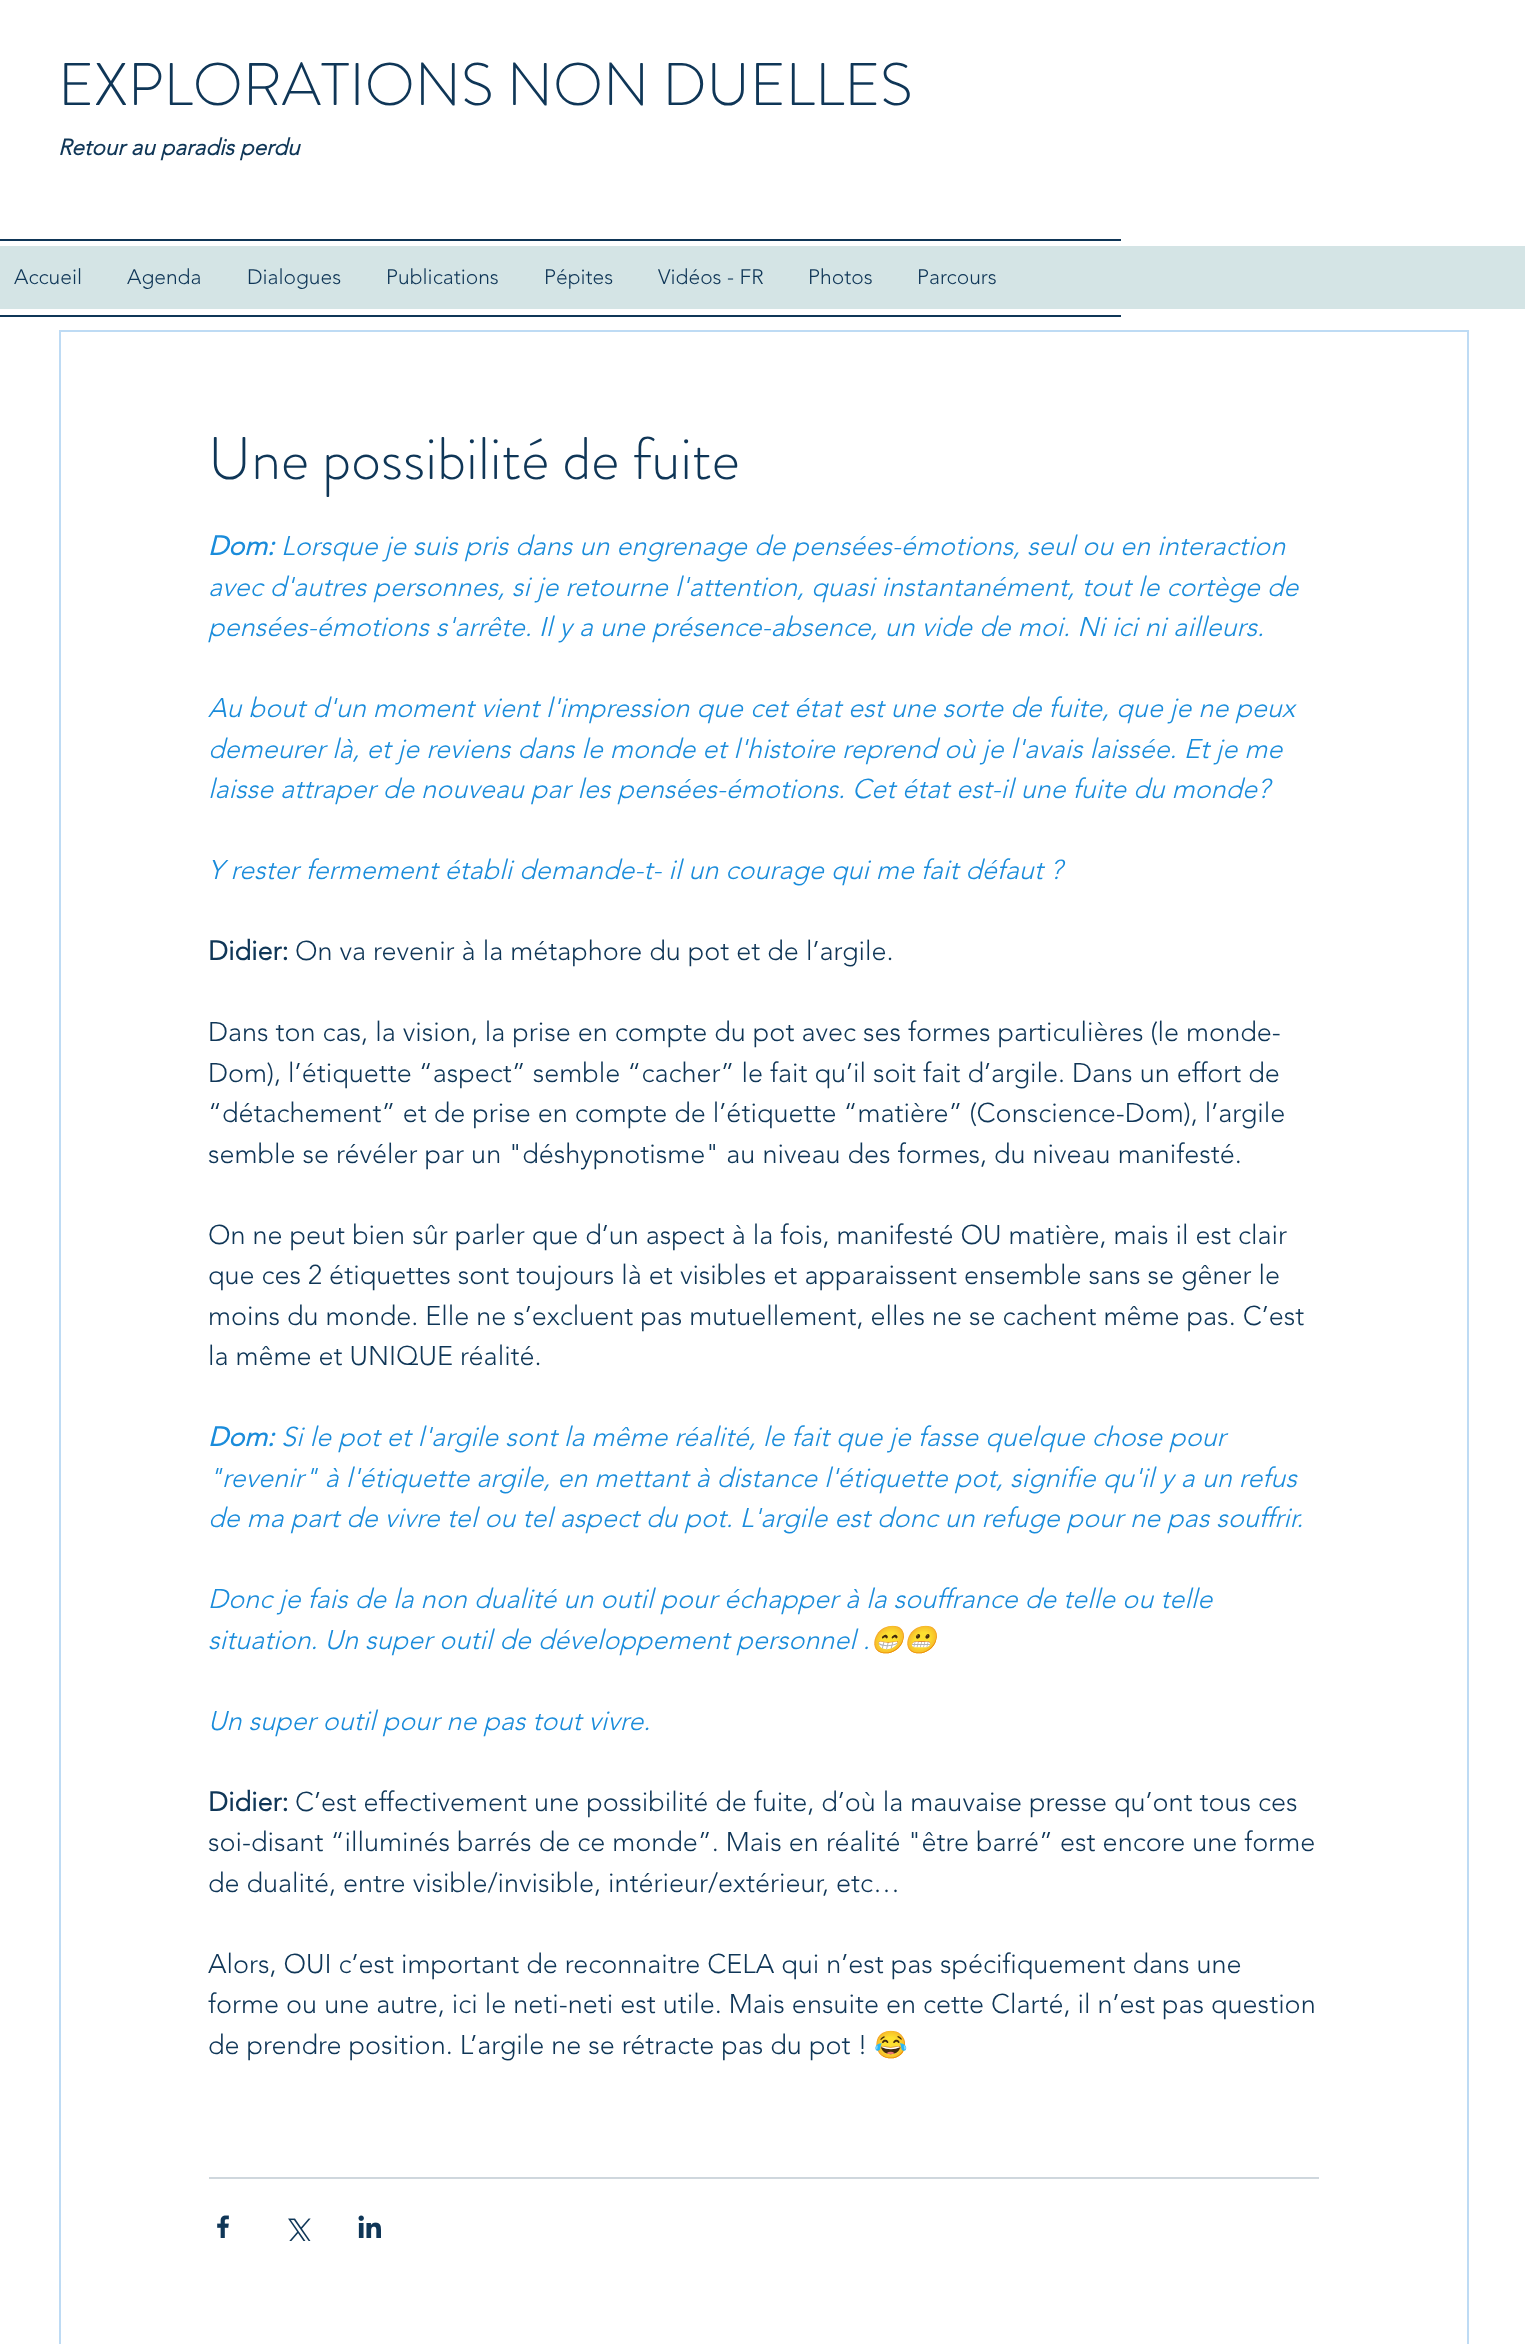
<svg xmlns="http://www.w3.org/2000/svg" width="1525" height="2344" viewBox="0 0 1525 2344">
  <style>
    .t1 { font: 300 60px 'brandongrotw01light'; fill: #0f3657; }
    .t2 { font: italic bold 22.5px 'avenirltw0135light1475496'; fill: #0f3657; }
    .t3 { font: 300 21px 'avenirltw0135light1475496'; fill: #0f3657; }
    .t4 { font: italic bold 27px 'avenirltw0135light1475496'; fill: #1a8cdb; }
    .t5 { font: italic 300 27px 'avenirltw0135light1475496'; fill: #1a8cdb; }
    .t6 { font: bold 27px 'avenirltw0135light1475496'; fill: #0f3657; }
    .t7 { font: 300 27px 'avenirltw0135light1475496'; fill: #0f3657; }
    .t8 { font: italic 27px Noto Color Emoji; fill: #1a8cdb; }
    .t9 { font: 27px Noto Color Emoji; fill: #0f3657; }
  </style>
  <rect width="100%" height="100%" fill="#fff"/>
  <text x="58" y="105" class="t1">EXPLORATIONS NON DUELLES</text>
  <text x="58" y="155" class="t2">Retour au paradis perdu</text>
  <rect x="0" y="246" width="1525" height="63" fill="#d4e4e5"/>
  <rect x="0" y="239" width="1121" height="2" fill="#0f3657"/>
  <rect x="0" y="315" width="1121" height="2" fill="#0f3657"/>
  <text x="14" y="284" class="t3">Accueil</text>
  <text x="127" y="284" class="t3">Agenda</text>
  <text x="247" y="284" class="t3">Dialogues</text>
  <text x="386" y="284" class="t3">Publications</text>
  <text x="544" y="284" class="t3">Pépites</text>
  <text x="658" y="284" class="t3">Vidéos - FR</text>
  <text x="808" y="284" class="t3">Photos</text>
  <text x="917" y="284" class="t3">Parcours</text>
  <rect x="60" y="331" width="1408" height="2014" fill="none" stroke="#bedbf4" stroke-width="2"/>
  <text x="208" y="479" class="t1">Une possibilité de fuite</text>
  <text x="208" y="555" class="t4">Dom:</text>
  <text x="281" y="555" class="t5">Lorsque je suis pris dans un engrenage de pensées-émotions, seul ou en interaction</text>
  <text x="208" y="596" class="t5">avec d'autres personnes, si je retourne l'attention, quasi instantanément, tout le cortège de</text>
  <text x="208" y="636" class="t5">pensées-émotions s'arrête. Il y a une présence-absence, un vide de moi. Ni ici ni ailleurs.</text>
  <text x="208" y="717" class="t5">Au bout d'un moment vient l'impression que cet état est une sorte de fuite, que je ne peux</text>
  <text x="208" y="758" class="t5">demeurer là, et je reviens dans le monde et l'histoire reprend où je l'avais laissée. Et je me</text>
  <text x="208" y="798" class="t5">laisse attraper de nouveau par les pensées-émotions. Cet état est-il une fuite du monde?</text>
  <text x="208" y="879" class="t5">Y rester fermement établi demande-t- il un courage qui me fait défaut ?</text>
  <text x="208" y="960" class="t6">Didier:</text>
  <text x="295" y="960" class="t7">On va revenir à la métaphore du pot et de l’argile.</text>
  <text x="208" y="1041" class="t7">Dans ton cas, la vision, la prise en compte du pot avec ses formes particulières (le monde-</text>
  <text x="208" y="1082" class="t7">Dom), l’étiquette “aspect” semble “cacher” le fait qu’il soit fait d’argile. Dans un effort de</text>
  <text x="208" y="1122" class="t7">“détachement” et de prise en compte de l’étiquette “matière” (Conscience-Dom), l’argile</text>
  <text x="208" y="1163" class="t7">semble se révéler par un "déshypnotisme" au niveau des formes, du niveau manifesté.</text>
  <text x="208" y="1244" class="t7">On ne peut bien sûr parler que d’un aspect à la fois, manifesté OU matière, mais il est clair</text>
  <text x="208" y="1284" class="t7">que ces 2 étiquettes sont toujours là et visibles et apparaissent ensemble sans se gêner le</text>
  <text x="208" y="1325" class="t7">moins du monde. Elle ne s’excluent pas mutuellement, elles ne se cachent même pas. C’est</text>
  <text x="208" y="1365" class="t7">la même et UNIQUE réalité.</text>
  <text x="208" y="1446" class="t4">Dom:</text>
  <text x="281" y="1446" class="t5">Si le pot et l'argile sont la même réalité, le fait que je fasse quelque chose pour</text>
  <text x="208" y="1487" class="t5">"revenir" à l'étiquette argile, en mettant à distance l'étiquette pot, signifie qu'il y a un refus</text>
  <text x="208" y="1527" class="t5">de ma part de vivre tel ou tel aspect du pot. L'argile est donc un refuge pour ne pas souffrir.</text>
  <text x="208" y="1608" class="t5">Donc je fais de la non dualité un outil pour échapper à la souffrance de telle ou telle</text>
  <text x="208" y="1649" class="t5">situation. Un super outil de développement personnel .</text>
  <text x="870" y="1649" class="t8">😁😬</text>
  <text x="208" y="1730" class="t5">Un super outil pour ne pas tout vivre.</text>
  <text x="208" y="1811" class="t6">Didier:</text>
  <text x="295" y="1811" class="t7">C’est effectivement une possibilité de fuite, d’où la mauvaise presse qu’ont tous ces</text>
  <text x="208" y="1851" class="t7">soi-disant “illuminés barrés de ce monde”. Mais en réalité "être barré” est encore une forme</text>
  <text x="208" y="1892" class="t7">de dualité, entre visible/invisible, intérieur/extérieur, etc…</text>
  <text x="208" y="1973" class="t7">Alors, OUI c’est important de reconnaitre CELA qui n’est pas spécifiquement dans une</text>
  <text x="208" y="2013" class="t7">forme ou une autre, ici le neti-neti est utile. Mais ensuite en cette Clarté, il n’est pas question</text>
  <text x="208" y="2054" class="t7">de prendre position. L’argile ne se rétracte pas du pot !</text>
  <text x="874" y="2054" class="t9">😂</text>
  <rect x="209" y="2177" width="1110" height="2" fill="#cfd7dd"/>
  <image x="217" y="2215" width="12" height="23" href="images/1.png"/>
  <image x="288" y="2218" width="23" height="23" href="images/2.png"/>
  <image x="358" y="2215" width="23" height="23" href="images/3.png"/>
</svg>
